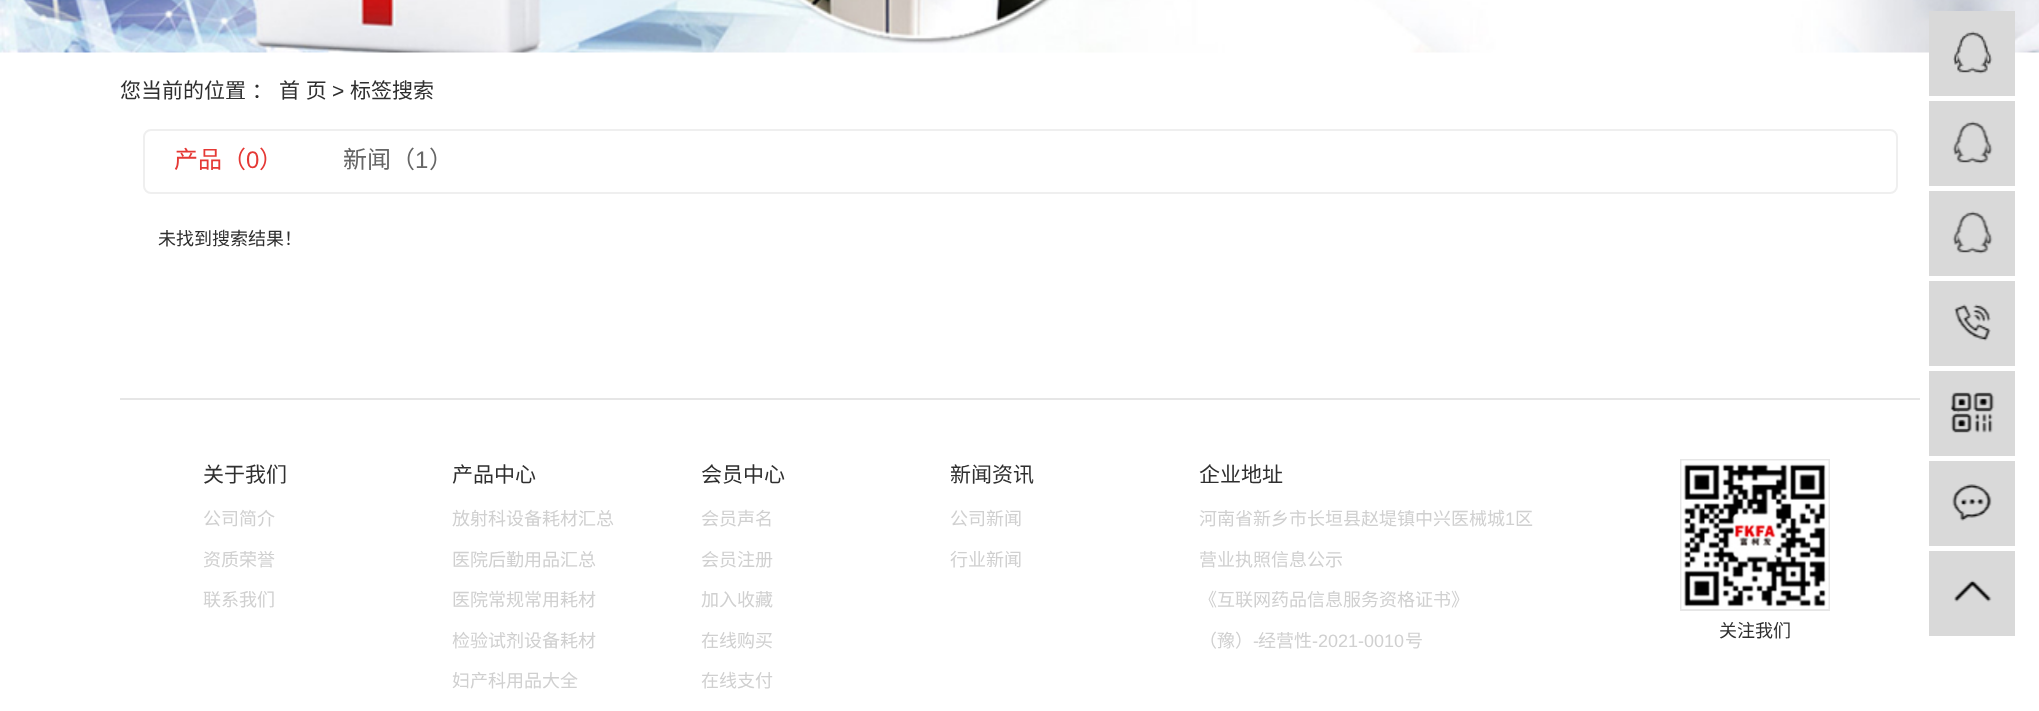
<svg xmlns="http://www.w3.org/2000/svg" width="2039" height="711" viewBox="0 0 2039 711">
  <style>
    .t1 { font: 21px Noto Sans CJK SC; fill: #2f2f2f; }
    .t2 { font: 21px Liberation Sans; fill: #2f2f2f; }
    .t3 { font: 24px Noto Sans CJK SC; fill: #e53935; }
    .t4 { font: 24px Liberation Sans; fill: #e53935; }
    .t5 { font: 24px Noto Sans CJK SC; fill: #666; }
    .t6 { font: 24px Liberation Sans; fill: #666; }
    .t7 { font: 18px Noto Sans CJK SC; fill: #2f2f2f; }
    .t8 { font: 18px Noto Sans CJK SC; fill: #d0d0d0; }
    .t9 { font: 18px Liberation Sans; fill: #d0d0d0; }
  </style>
  <rect width="100%" height="100%" fill="#fff"/>
  <image x="0" y="0" width="2039" height="53" href="images/1.png"/>
  <text x="120" y="98" word-spacing="1" class="t1">您当前的位置 ：</text>
  <text x="279" y="98" word-spacing="1" class="t1">首 页</text>
  <text x="332" y="98" class="t2">&gt;</text>
  <text x="350" y="98" class="t1">标签搜索</text>
  <rect x="1929" y="11" width="86" height="85" fill="#d9d9d9"/>
  <image x="1953" y="31" width="40" height="43" href="images/2.png"/>
  <rect x="1929" y="101" width="86" height="85" fill="#d9d9d9"/>
  <image x="1952" y="121" width="41" height="43" href="images/3.png"/>
  <rect x="1929" y="191" width="86" height="85" fill="#d9d9d9"/>
  <image x="1952" y="211" width="41" height="43" href="images/3.png"/>
  <rect x="1929" y="281" width="86" height="85" fill="#d9d9d9"/>
  <image x="1954" y="304" width="37" height="37" href="images/4.png"/>
  <rect x="1929" y="371" width="86" height="85" fill="#d9d9d9"/>
  <image x="1950" y="392" width="45" height="41" href="images/5.png"/>
  <rect x="1929" y="461" width="86" height="85" fill="#d9d9d9"/>
  <image x="1952" y="484" width="40" height="37" href="images/6.png"/>
  <rect x="1929" y="551" width="86" height="85" fill="#d9d9d9"/>
  <image x="1954" y="580" width="38" height="22" href="images/7.png"/>
  <rect x="144" y="130" width="1753" height="63" rx="7" fill="none" stroke="#efefef" stroke-width="2"/>
  <text x="174" y="168" class="t3">产品（</text>
  <text x="246" y="168" class="t4">0</text>
  <text x="259" y="168" class="t3">）</text>
  <text x="343" y="168" class="t5">新闻（</text>
  <text x="415" y="168" class="t6">1</text>
  <text x="429" y="168" class="t5">）</text>
  <text x="158" y="245" class="t7">未找到搜索结果！</text>
  <rect x="120" y="398" width="1800" height="2" fill="#e6e6e6"/>
  <text x="203" y="482" class="t1">关于我们</text>
  <text x="203" y="525" class="t8">公司简介</text>
  <text x="203" y="566" class="t8">资质荣誉</text>
  <text x="203" y="606" class="t8">联系我们</text>
  <text x="452" y="482" class="t1">产品中心</text>
  <text x="452" y="525" class="t8">放射科设备耗材汇总</text>
  <text x="452" y="566" class="t8">医院后勤用品汇总</text>
  <text x="452" y="606" class="t8">医院常规常用耗材</text>
  <text x="452" y="647" class="t8">检验试剂设备耗材</text>
  <text x="452" y="687" class="t8">妇产科用品大全</text>
  <text x="701" y="482" class="t1">会员中心</text>
  <text x="701" y="525" class="t8">会员声名</text>
  <text x="701" y="566" class="t8">会员注册</text>
  <text x="701" y="606" class="t8">加入收藏</text>
  <text x="701" y="647" class="t8">在线购买</text>
  <text x="701" y="687" class="t8">在线支付</text>
  <text x="950" y="482" class="t1">新闻资讯</text>
  <text x="950" y="525" class="t8">公司新闻</text>
  <text x="950" y="566" class="t8">行业新闻</text>
  <text x="1199" y="482" class="t1">企业地址</text>
  <text x="1199" y="525" class="t8">河南省新乡市长垣县赵堤镇中兴医械城</text>
  <text x="1505" y="525" class="t9">1</text>
  <text x="1515" y="525" class="t8">区</text>
  <text x="1199" y="566" class="t8">营业执照信息公示</text>
  <text x="1199" y="606" class="t8">《互联网药品信息服务资格证书》</text>
  <text x="1199" y="647" class="t8">（豫）</text>
  <text x="1253" y="647" class="t9">-</text>
  <text x="1258" y="647" class="t8">经营性</text>
  <text x="1312" y="647" class="t9">-2021-0010</text>
  <text x="1405" y="647" class="t8">号</text>
  <rect x="1681" y="460" width="148" height="150" fill="none" stroke="#e6e6e6" stroke-width="2"/>
  <image x="1681" y="460" width="148" height="149" href="images/8.png"/>
  <text x="1719" y="637" class="t7">关注我们</text>
</svg>
